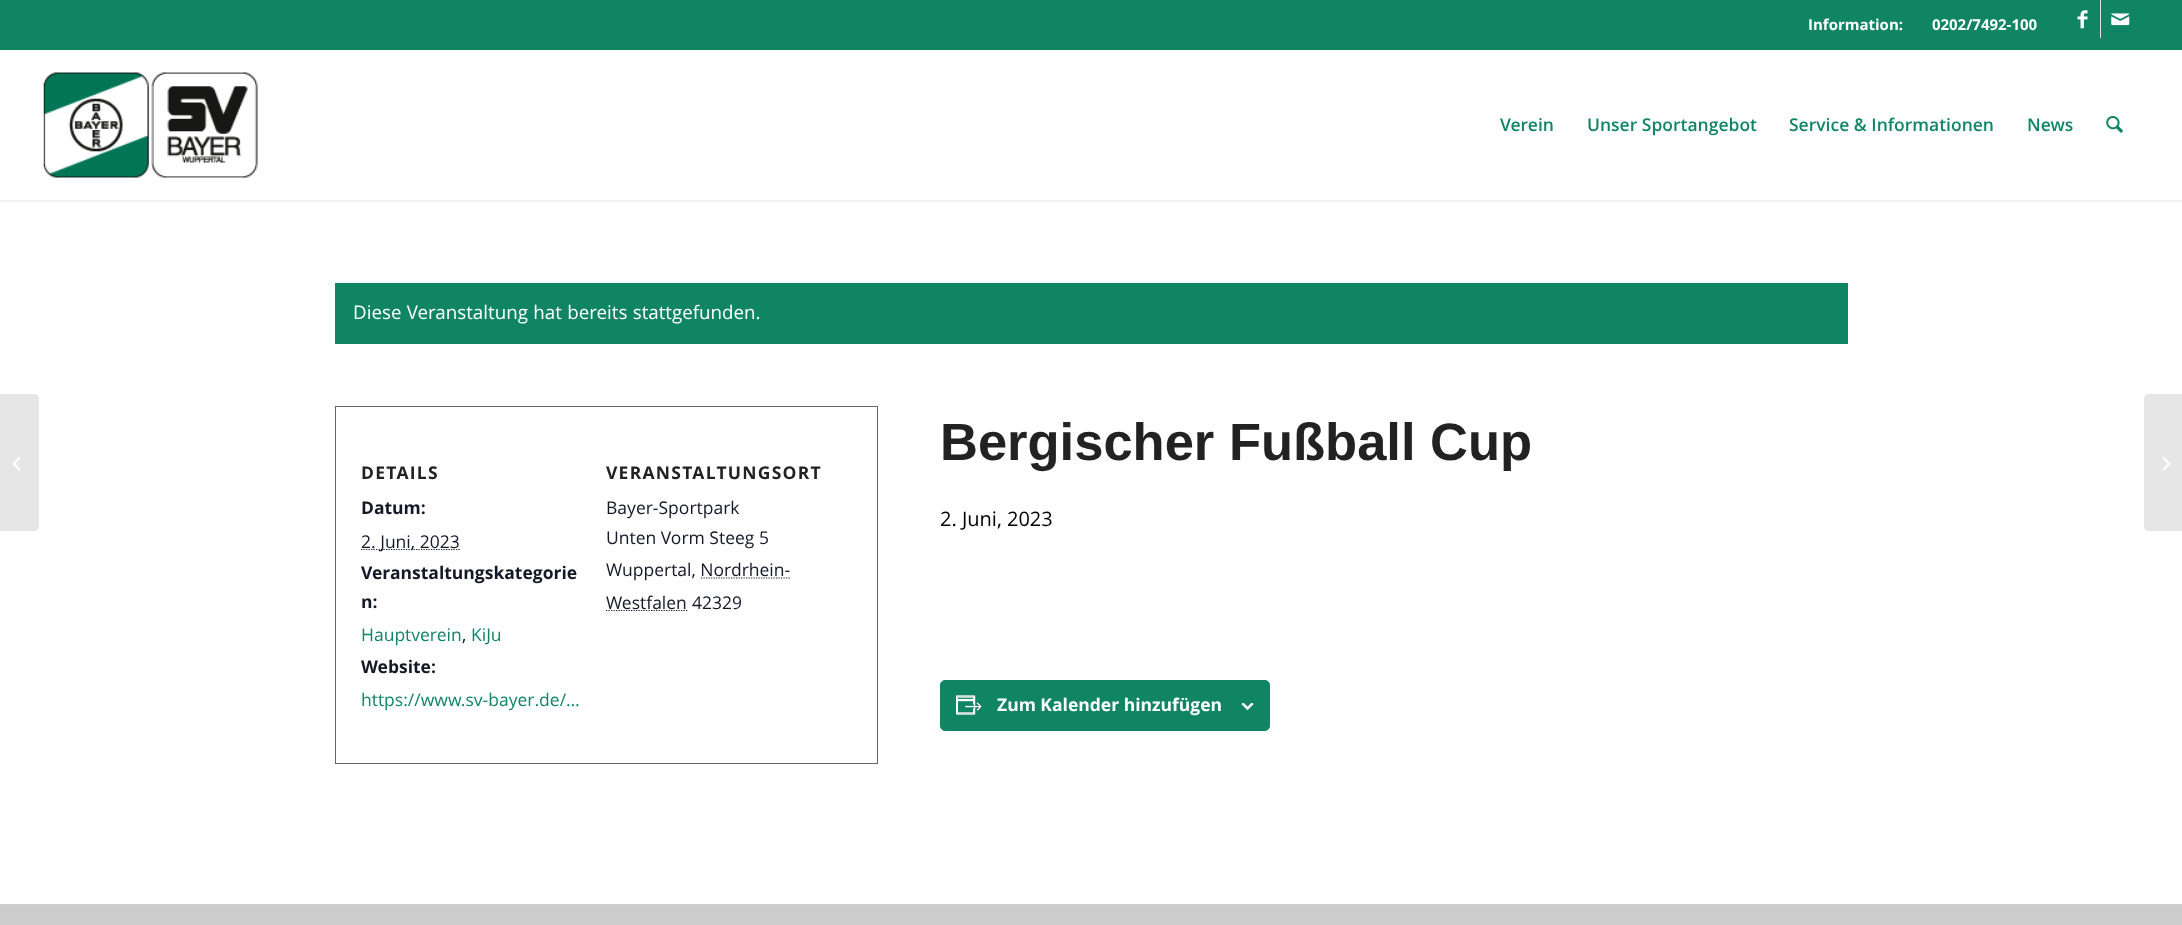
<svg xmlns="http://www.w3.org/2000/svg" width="2182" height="925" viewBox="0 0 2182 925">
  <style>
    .t1 { font: bold 15px Open Sans; fill: #fff; }
    .t2 { font: 600 17.5px Open Sans; fill: #108564; }
    .t3 { font: 18.75px Open Sans; fill: #fff; }
    .t4 { font: bold 17.5px Open Sans; letter-spacing: 1.25px; fill: #222; }
    .t5 { font: bold 17.5px Open Sans; fill: #141827; }
    .t6 { font: 17.5px Open Sans; fill: #141827; }
    .t7 { font: 17.5px Open Sans; fill: #108564; }
    .t8 { font: bold 52.5px Liberation Sans; fill: #222; }
    .t9 { font: 20px Open Sans; fill: #000; }
    .t10 { font: bold 17.5px Open Sans; fill: #fff; }
  </style>
  <rect width="100%" height="100%" fill="#fff"/>
  <rect x="-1" y="-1" width="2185" height="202" fill="#0000001a" filter="blur(1px)"/>
  <rect x="0" y="0" width="2182" height="50" fill="#108564"/>
  <text x="1808" y="30" word-spacing="25" class="t1">Information: 0202/7492-100</text>
  <rect x="2100" y="0" width="1" height="38" fill="#e1e1e1"/>
  <image x="2077" y="10" width="11" height="19" href="images/1.png"/>
  <image x="2111" y="13" width="19" height="13" href="images/2.png"/>
  <rect x="0" y="50" width="2182" height="150" fill="#fff"/>
  <image x="43" y="72" width="215" height="106" href="images/3.png"/>
  <text x="1500" y="131" class="t2">Verein</text>
  <text x="1587" y="131" class="t2">Unser Sportangebot</text>
  <text x="1789" y="131" class="t2">Service &amp; Informationen</text>
  <text x="2027" y="131" class="t2">News</text>
  <image x="2106" y="116" width="17" height="17" href="images/4.png"/>
  <path d="M0 394H34C37 394 39 396 39 399V526C39 529 37 531 34 531H0Z" fill="#e6e6e6"/>
  <image x="13" y="457" width="7" height="14" href="images/5.png"/>
  <rect x="335" y="283" width="1513" height="61" fill="#108564"/>
  <text x="353" y="319" word-spacing="0.5" class="t3">Diese Veranstaltung hat bereits stattgefunden.</text>
  <rect x="335.5" y="406.5" width="542" height="357" fill="none" stroke="#666"/>
  <text x="361" y="479" class="t4">DETAILS</text>
  <text x="361" y="514" class="t5">Datum:</text>
  <path d="M361 549.5H460" fill="none" stroke="#141827" stroke-width="1.2" stroke-dasharray="1.25 1.25"/>
  <text x="361" y="548" class="t6">2. Juni, 2023</text>
  <text x="361" y="579" class="t5">Veranstaltungskategorie</text>
  <text x="361" y="608" class="t5">n:</text>
  <text x="361" y="641" class="t7">Hauptverein</text>
  <text x="462" y="641" class="t6">,</text>
  <text x="471" y="641" class="t7">KiJu</text>
  <text x="361" y="673" class="t5">Website:</text>
  <text x="361" y="706" class="t7">https://www.sv-bayer.de/…</text>
  <text x="606" y="479" class="t4">VERANSTALTUNGSORT</text>
  <text x="606" y="514" class="t6">Bayer-Sportpark</text>
  <text x="606" y="544" class="t6">Unten Vorm Steeg 5</text>
  <text x="606" y="576" class="t6">Wuppertal, Nordrhein-</text>
  <path d="M701 578H791" fill="none" stroke="#141827" stroke-width="1.2" stroke-dasharray="1.25 1.25"/>
  <path d="M606 610.5H687.5" fill="none" stroke="#141827" stroke-width="1.2" stroke-dasharray="1.25 1.25"/>
  <text x="606" y="609" class="t6">Westfalen</text>
  <text x="692" y="609" class="t6">42329</text>
  <text x="940" y="460" class="t8">Bergischer Fußball Cup</text>
  <text x="940" y="526" class="t9">2. Juni, 2023</text>
  <rect x="940.5" y="680.5" width="329" height="50" rx="4.5" fill="#108564" stroke="#108564"/>
  <image x="956" y="695" width="26" height="20" href="images/6.png"/>
  <text x="997" y="711" class="t10">Zum Kalender hinzufügen</text>
  <image x="1241" y="703" width="13" height="7" href="images/7.png"/>
  <rect x="0" y="905" width="2182" height="20" fill="#ccc"/>
  <rect x="0" y="904" width="2182" height="1" fill="#d0d0d0"/>
  <path d="M2149 394H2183V531H2149C2146 531 2144 529 2144 526V399C2144 396 2146 394 2149 394Z" fill="#e6e6e6"/>
  <image x="2163" y="457" width="7" height="14" href="images/8.png"/>
</svg>
